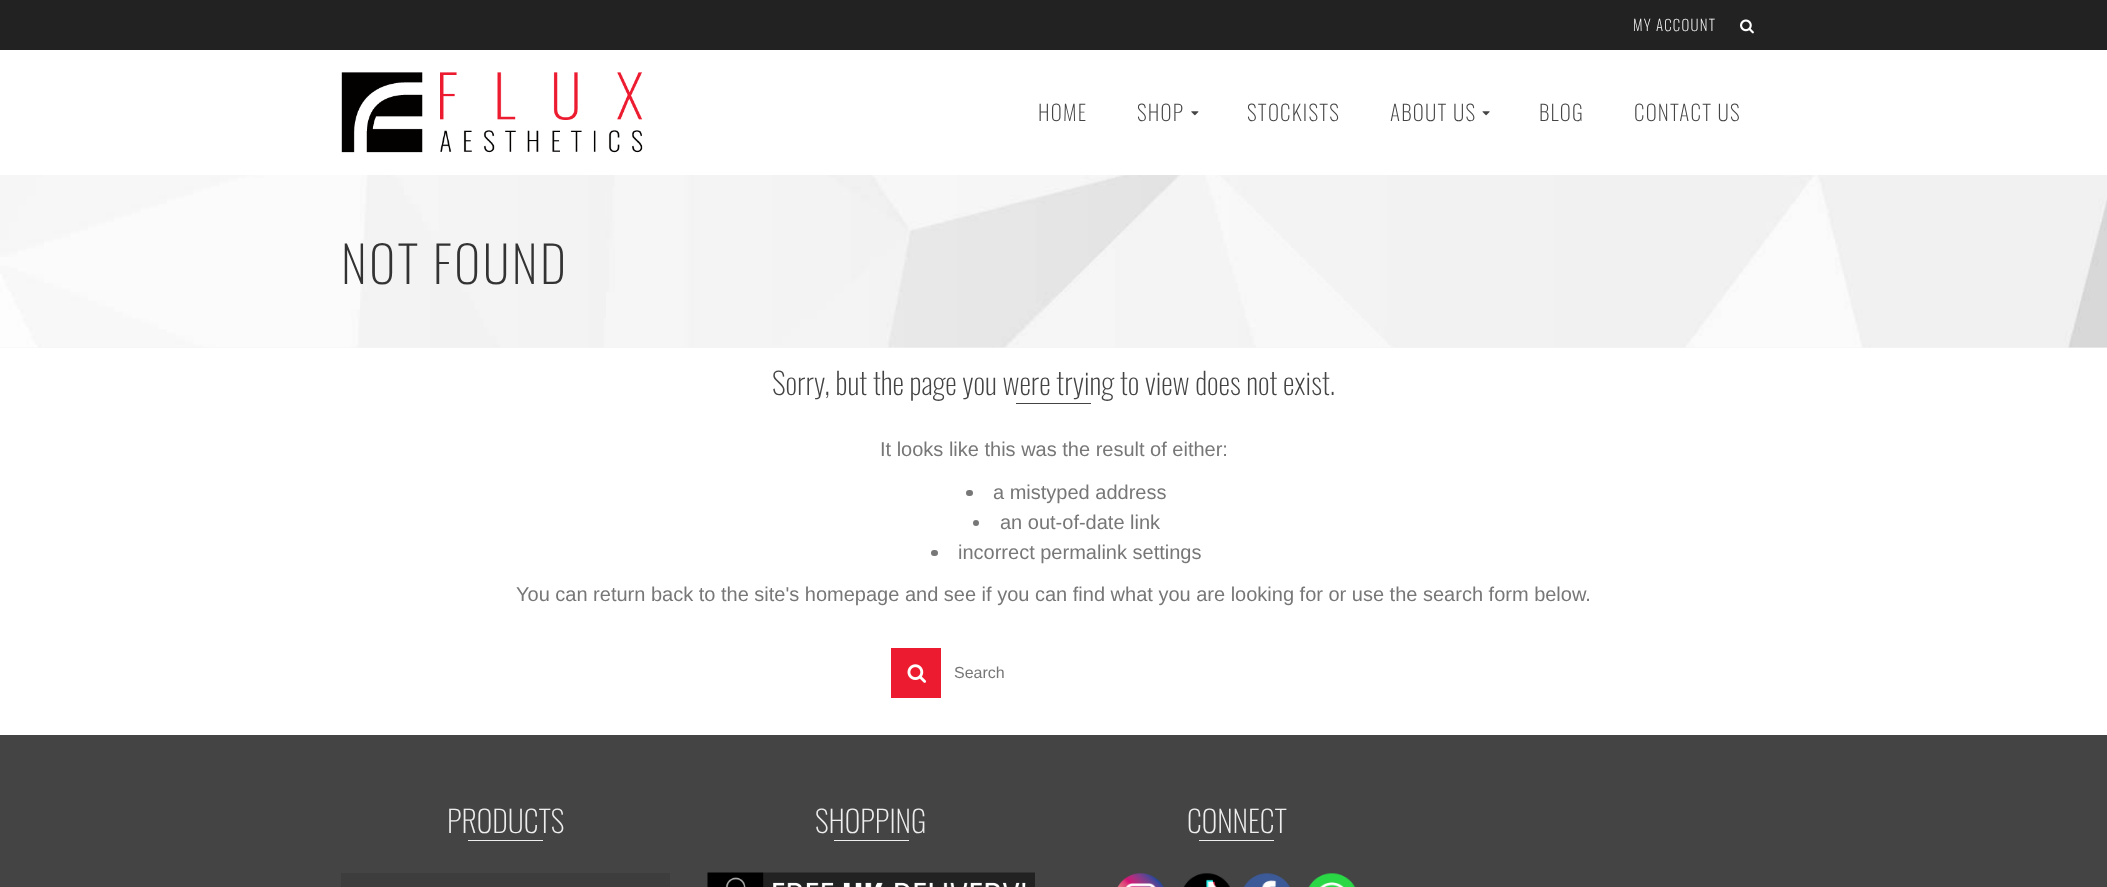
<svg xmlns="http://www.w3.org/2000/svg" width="2107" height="887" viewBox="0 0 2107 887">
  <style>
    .t1 { font: 200 15px Oswald; letter-spacing: 1.25px; fill: #fff; }
    .t2 { font: 200 21.25px Oswald; letter-spacing: 1.25px; fill: #444; }
    .t3 { font: 200 50px Oswald; letter-spacing: 2.5px; fill: #333; }
    .t4 { font: 200 30px Oswald; fill: #444; }
    .t5 { font: 20px Liberation Sans; fill: #777; }
    .t6 { font: 16px Liberation Sans; fill: #777; }
    .t7 { font: 200 30px Oswald; fill: #eee; }
  </style>
  <rect width="100%" height="100%" fill="#fff"/>
  <rect x="0" y="0" width="2107" height="50" fill="#222"/>
  <text x="1633" y="31" class="t1">MY ACCOUNT</text>
  <image x="1740" y="19" width="14" height="15" href="images/1.png"/>
  <image x="341" y="72" width="302" height="81" href="images/2.png"/>
  <text x="1038" y="121" class="t2">HOME</text>
  <text x="1137" y="121" class="t2">SHOP</text>
  <image x="1191" y="111" width="8" height="5" href="images/3.png"/>
  <text x="1247" y="121" class="t2">STOCKISTS</text>
  <text x="1390" y="121" class="t2">ABOUT US</text>
  <image x="1482" y="111" width="8" height="5" href="images/4.png"/>
  <text x="1539" y="121" class="t2">BLOG</text>
  <text x="1634" y="121" class="t2">CONTACT US</text>
  <rect x="0" y="347" width="2107" height="1" fill="#f5f5f5"/>
  <image x="0" y="175" width="2107" height="173" href="images/5.png"/>
  <text x="341" y="284" class="t3">NOT FOUND</text>
  <text x="772" y="395" class="t4">Sorry, but the page you were trying to view does not exist.</text>
  <rect x="1016" y="403" width="75" height="1" fill="#444"/>
  <text x="880" y="456" class="t5">It looks like this was the result of either:</text>
  <rect x="966" y="490" width="7" height="6" rx="3" fill="#777"/>
  <text x="993" y="499" class="t5">a mistyped address</text>
  <circle cx="976" cy="523" r="3" fill="#777"/>
  <text x="1000" y="529" class="t5">an out-of-date link</text>
  <rect x="931" y="550" width="7" height="6" rx="3" fill="#777"/>
  <text x="958" y="559" class="t5">incorrect permalink settings</text>
  <text x="516" y="601" class="t5">You can return back to the site's homepage and see if you can find what you are looking for or use the search form below.</text>
  <rect x="891" y="648" width="50" height="50" fill="#ed1b2f"/>
  <image x="907" y="664" width="20" height="19" href="images/6.png"/>
  <text x="954" y="678" class="t6">Search</text>
  <rect x="0" y="735" width="2107" height="152" fill="#444"/>
  <text x="447" y="833" class="t7">PRODUCTS</text>
  <rect x="468" y="840" width="75" height="1" fill="#eee"/>
  <rect x="341" y="873" width="329" height="14" fill="#3d3d3d"/>
  <text x="815" y="833" class="t7">SHOPPING</text>
  <rect x="834" y="840" width="75" height="1" fill="#eee"/>
  <image x="707" y="872" width="328" height="15" href="images/7.png"/>
  <text x="1187" y="833" class="t7">CONNECT</text>
  <rect x="1199" y="840" width="75" height="1" fill="#eee"/>
  <image x="1117" y="873" width="47" height="14" href="images/8.png"/>
  <image x="1183" y="873" width="47" height="14" href="images/9.png"/>
  <image x="1243" y="873" width="47" height="14" href="images/10.png"/>
  <image x="1308" y="873" width="48" height="14" href="images/11.png"/>
</svg>
